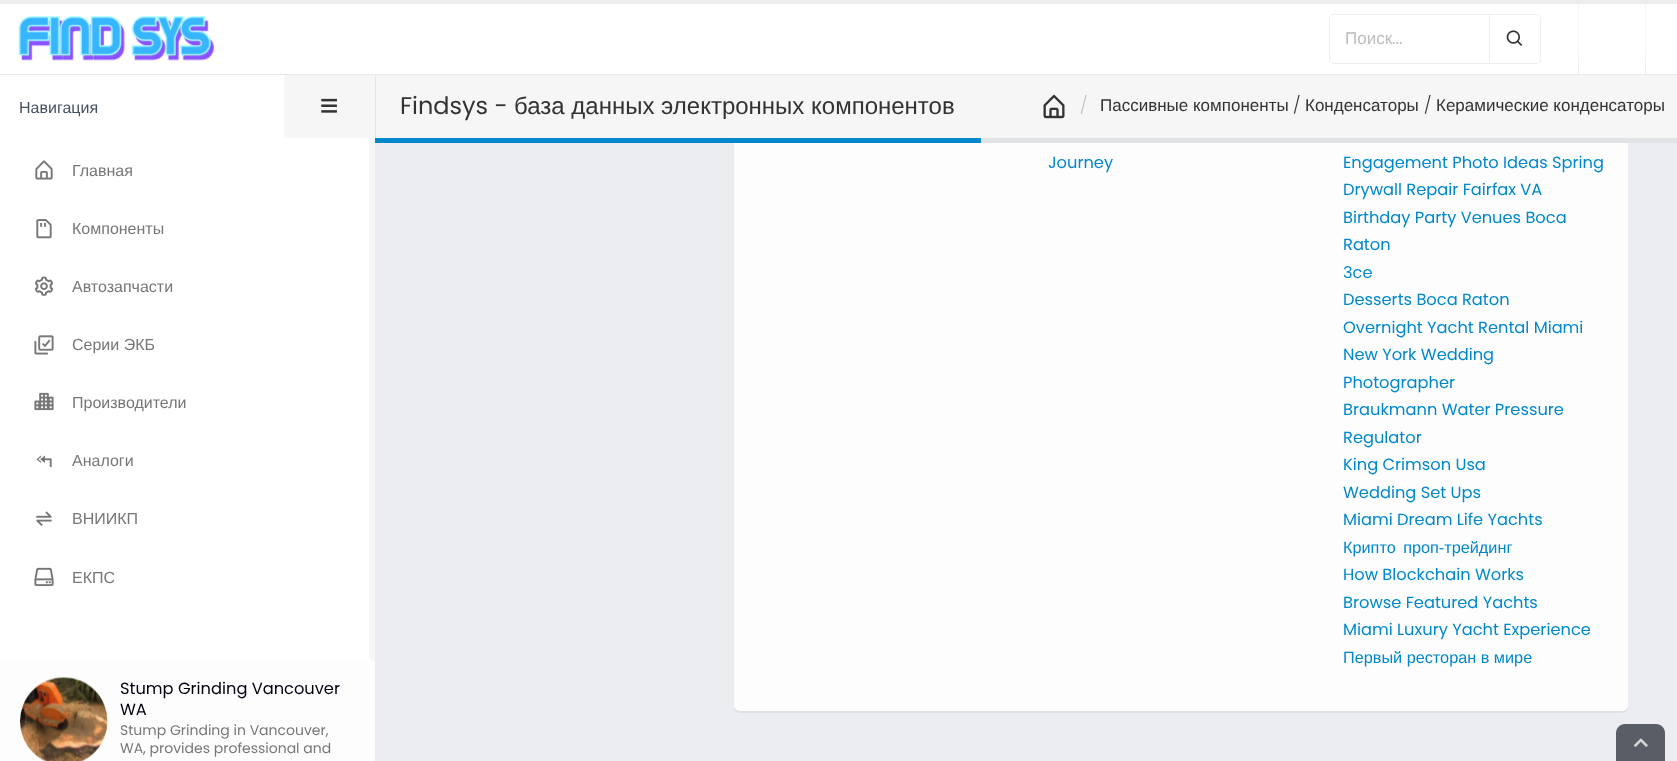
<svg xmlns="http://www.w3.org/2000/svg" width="1677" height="761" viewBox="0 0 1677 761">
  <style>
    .t1 { font: 17px Liberation Sans; fill: #bdbdbd; }
    .t2 { font: 17px Poppins; fill: #bdbdbd; }
    .t3 { font: 16px Liberation Sans; fill: #465162; }
    .t4 { font: 16px Liberation Sans; fill: #777; }
    .t5 { font: 16.25px Poppins; fill: #001; }
    .t6 { font: 14px Poppins; fill: #777; }
    .t7 { font: 24px Poppins; fill: #333; }
    .t8 { font: 24px Liberation Sans; fill: #333; }
    .t9 { font: 300 17px Poppins; fill: #c3c3c3; }
    .t10 { font: 17px Liberation Sans; fill: #333; }
    .t11 { font: 300 17px Poppins; fill: #333; }
    .t12 { font: 16.25px Poppins; fill: #08c; }
    .t13 { font: 16.25px Liberation Sans; fill: #08c; }
  </style>
  <defs>
    <linearGradient id="g1" gradientUnits="userSpaceOnUse" x1="1578" y1="3.8" x2="1578" y2="74"><stop offset="0.6" stop-color="#f6f6f6"/><stop offset="1" stop-color="#ededed"/></linearGradient>
    <linearGradient id="g2" gradientUnits="userSpaceOnUse" x1="1646" y1="3.8" x2="1646" y2="74"><stop offset="0.6" stop-color="#f6f6f6"/><stop offset="1" stop-color="#ededed"/></linearGradient>
  </defs>
  <rect width="100%" height="100%" fill="#ecedf0"/>
  <rect x="734" y="-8" width="894" height="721" rx="6" fill="#0000000d" filter="blur(0.5px)"/>
  <path d="M734-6H1628V705C1628 708.5 1625.5 711 1622 711H740C736.5 711 734 708.5 734 705Z" fill="#fdfdfd"/>
  <rect x="0" y="4" width="1677" height="70" fill="#fff"/>
  <rect x="0" y="0" width="1677" height="4" fill="#ededed"/>
  <rect x="0" y="74" width="1677" height="1" fill="#e9e9e6"/>
  <image x="18" y="16" width="196" height="45" href="images/1.png"/>
  <path d="M1334 14.5H1489.5V63.5H1334C1331.5 63.5 1329.5 61.5 1329.5 59V19C1329.5 16.5 1331.5 14.5 1334 14.5Z" fill="none" stroke="#ededed"/>
  <text x="1345" y="44" class="t1">Поиск</text>
  <text x="1392" y="44" class="t2">...</text>
  <path d="M1489.5 14.5H1536C1538.5 14.5 1540.5 16.5 1540.5 19V59C1540.5 61.5 1538.5 63.5 1536 63.5H1489.5Z" fill="#fff" stroke="#ededed"/>
  <image x="1506" y="30" width="17" height="16" href="images/2.png"/>
  <rect x="1578" y="4" width="1" height="70" fill="url(#g1)"/>
  <rect x="1645" y="4" width="1" height="70" fill="url(#g2)"/>
  <rect x="0" y="75" width="369" height="589" fill="#fff"/>
  <text x="19" y="113" class="t3">Навигация</text>
  <path d="M284 75H375V138H290C286.5 138 284 135.5 284 132Z" fill="#f6f6f6"/>
  <image x="321" y="98" width="16" height="15" href="images/3.png"/>
  <rect x="369" y="138" width="6" height="526" fill="#f6f6f6"/>
  <image x="35" y="160" width="18" height="20" href="images/4.png"/>
  <text x="72" y="176" class="t4">Главная</text>
  <image x="36" y="219" width="16" height="20" href="images/5.png"/>
  <text x="72" y="234" class="t4">Компоненты</text>
  <image x="35" y="276" width="18" height="20" href="images/6.png"/>
  <text x="72" y="292" class="t4">Автозапчасти</text>
  <image x="34" y="335" width="20" height="20" href="images/7.png"/>
  <text x="72" y="350" class="t4">Серии ЭКБ</text>
  <image x="34" y="392" width="20" height="19" href="images/8.png"/>
  <text x="72" y="408" class="t4">Производители</text>
  <image x="36" y="455" width="16" height="12" href="images/9.png"/>
  <text x="72" y="466" class="t4">Аналоги</text>
  <image x="36" y="511" width="16" height="15" href="images/10.png"/>
  <text x="72" y="524" class="t4">ВНИИКП</text>
  <image x="34" y="567" width="20" height="20" href="images/11.png"/>
  <text x="72" y="583" class="t4">ЕКПС</text>
  <path d="M6 658H369C372.5 658 375 660.5 375 664V761H0V664C0 660.5 2.5 658 6 658Z" fill="#fdfdfd"/>
  <image x="20" y="677" width="88" height="84" href="images/12.png"/>
  <text x="120" y="694" class="t5">Stump Grinding Vancouver</text>
  <text x="120" y="715" class="t5">WA</text>
  <text x="120" y="735" class="t6">Stump Grinding in Vancouver,</text>
  <text x="120" y="753" class="t6">WA, provides professional and</text>
  <path d="M375 138V143H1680V78H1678V138Z" fill="#e2e3e6"/>
  <rect x="376" y="75" width="1301" height="63" fill="#f6f6f6"/>
  <rect x="375" y="75" width="1" height="63" fill="#e6e6e6"/>
  <rect x="375" y="138" width="606" height="5" fill="#08c"/>
  <text x="400" y="114" class="t7">Findsys -</text>
  <text x="514" y="114" class="t8">база данных электронных компонентов</text>
  <image x="1043" y="94" width="22" height="25" href="images/13.png"/>
  <text x="1080" y="111" class="t9">/</text>
  <text x="1100" y="111" class="t10">Пассивные компоненты</text>
  <text x="1293" y="111" class="t11">/</text>
  <text x="1305" y="111" class="t10">Конденсаторы</text>
  <text x="1424" y="111" class="t11">/</text>
  <text x="1436" y="111" class="t10">Керамические конденсаторы</text>
  <text x="1048" y="168" class="t12">Journey</text>
  <text x="1343" y="168" class="t12">Engagement Photo Ideas Spring</text>
  <text x="1343" y="195" class="t12">Drywall Repair Fairfax VA</text>
  <text x="1343" y="223" class="t12">Birthday Party Venues Boca</text>
  <text x="1343" y="250" class="t12">Raton</text>
  <text x="1343" y="278" class="t12">3ce</text>
  <text x="1343" y="305" class="t12">Desserts Boca Raton</text>
  <text x="1343" y="333" class="t12">Overnight Yacht Rental Miami</text>
  <text x="1343" y="360" class="t12">New York Wedding</text>
  <text x="1343" y="388" class="t12">Photographer</text>
  <text x="1343" y="415" class="t12">Braukmann Water Pressure</text>
  <text x="1343" y="443" class="t12">Regulator</text>
  <text x="1343" y="470" class="t12">King Crimson Usa</text>
  <text x="1343" y="498" class="t12">Wedding Set Ups</text>
  <text x="1343" y="525" class="t12">Miami Dream Life Yachts</text>
  <text x="1343" y="553" word-spacing="3" class="t13">Крипто проп-трейдинг</text>
  <text x="1343" y="580" class="t12">How Blockchain Works</text>
  <text x="1343" y="608" class="t12">Browse Featured Yachts</text>
  <text x="1343" y="635" class="t12">Miami Luxury Yacht Experience</text>
  <text x="1343" y="663" class="t13">Первый ресторан в мире</text>
  <path d="M1625 724H1656C1661 724 1665 728 1665 733V761H1616V733C1616 728 1620 724 1625 724Z" fill="#595d65"/>
  <image x="1634" y="738" width="14" height="9" href="images/14.png"/>
</svg>
